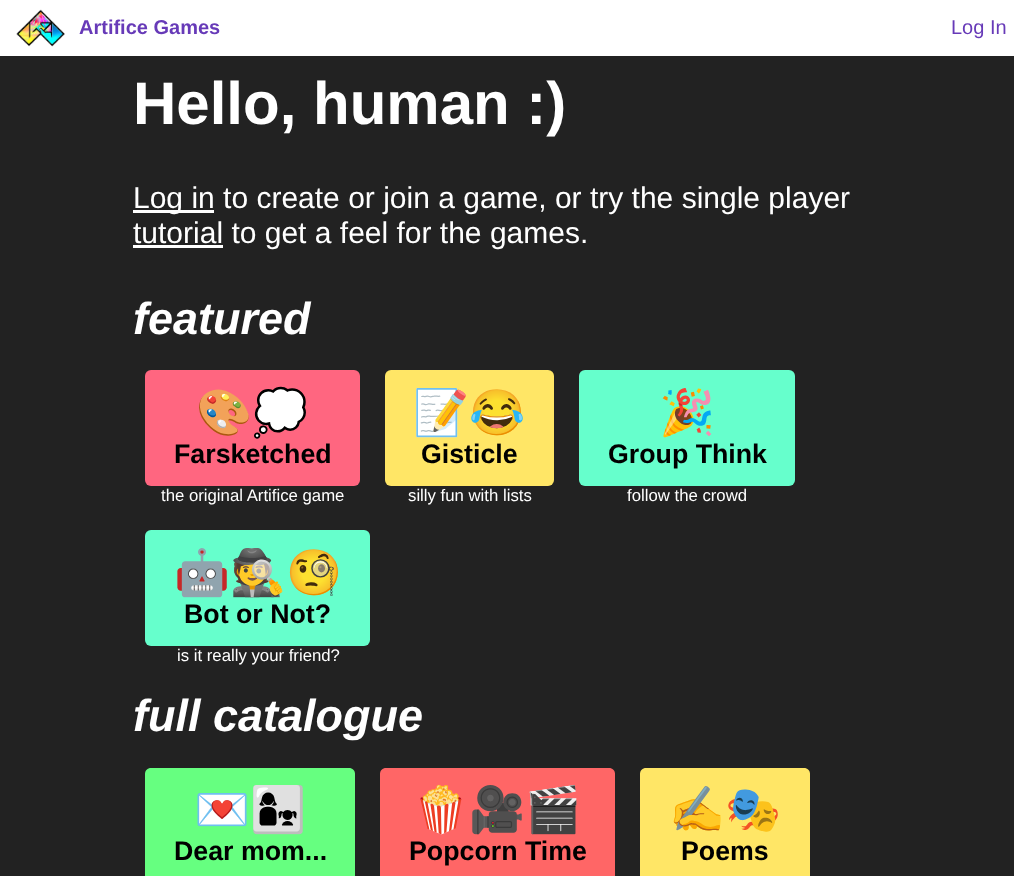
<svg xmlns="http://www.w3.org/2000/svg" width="1014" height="876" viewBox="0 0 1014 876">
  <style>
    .t1 { font: bold 20px Liberation Sans; fill: #673ab8; }
    .t2 { font: 20px Liberation Sans; fill: #673ab8; }
    .t3 { font: bold 60px Liberation Sans; fill: #fff; }
    .t4 { font: 30px Liberation Sans; fill: #fff; }
    .t5 { font: italic bold 45px Liberation Sans; fill: #fff; }
    .t6 { font: bold 45px Noto Color Emoji; fill: #000; }
    .t7 { font: bold 26.75px Liberation Sans; fill: #000; }
    .t8 { font: 16.75px Liberation Sans; fill: #fff; }
  </style>
  <rect width="100%" height="100%" fill="#222"/>
  <rect x="0" y="0" width="1014" height="56" fill="#fff"/>
  <image x="16" y="9" width="49" height="38" href="images/1.png"/>
  <text x="79" y="34" class="t1">Artifice Games</text>
  <text x="951" y="34" class="t2">Log In</text>
  <text x="133" y="124" class="t3">Hello, human :)</text>
  <rect x="133" y="210" width="81" height="3" fill="#fff"/>
  <text x="133" y="208" class="t4">Log in to create or join a game, or try the single player</text>
  <rect x="133" y="245" width="90" height="3" fill="#fff"/>
  <text x="133" y="243" class="t4">tutorial to get a feel for the games.</text>
  <text x="133" y="334" class="t5">featured</text>
  <rect x="145" y="370" width="215" height="116" rx="6" fill="#ff6680"/>
  <text x="196" y="428" class="t6">🎨💭</text>
  <text x="174" y="463" class="t7">Farsketched</text>
  <text x="161" y="501" class="t8">the original Artifice game</text>
  <rect x="385" y="370" width="169" height="116" rx="6" fill="#ffe666"/>
  <text x="413" y="428" class="t6">📝😂</text>
  <text x="421" y="463" class="t7">Gisticle</text>
  <text x="408" y="501" class="t8">silly fun with lists</text>
  <rect x="579" y="370" width="216" height="116" rx="6" fill="#6fc"/>
  <text x="659" y="428" class="t6">🎉</text>
  <text x="608" y="463" class="t7">Group Think</text>
  <text x="627" y="501" class="t8">follow the crowd</text>
  <rect x="145" y="530" width="225" height="116" rx="6" fill="#6fc"/>
  <text x="174" y="588" class="t6">🤖🕵️🧐</text>
  <text x="184" y="623" class="t7">Bot or Not?</text>
  <text x="177" y="661" class="t8">is it really your friend?</text>
  <text x="133" y="731" class="t5">full catalogue</text>
  <path d="M151 768H349C352.5 768 355 770.5 355 774V876H145V774C145 770.5 147.5 768 151 768Z" fill="#66ff80"/>
  <text x="194" y="825" class="t6">💌👩‍👧</text>
  <text x="174" y="860" class="t7">Dear mom...</text>
  <path d="M386 768H609C612.5 768 615 770.5 615 774V876H380V774C380 770.5 382.5 768 386 768Z" fill="#f66"/>
  <text x="413" y="825" class="t6">🍿🎥🎬</text>
  <text x="409" y="860" class="t7">Popcorn Time</text>
  <path d="M646 768H804C807.5 768 810 770.5 810 774V876H640V774C640 770.5 642.5 768 646 768Z" fill="#ffe666"/>
  <text x="669" y="825" class="t6">✍️🎭</text>
  <text x="681" y="860" class="t7">Poems</text>
</svg>
